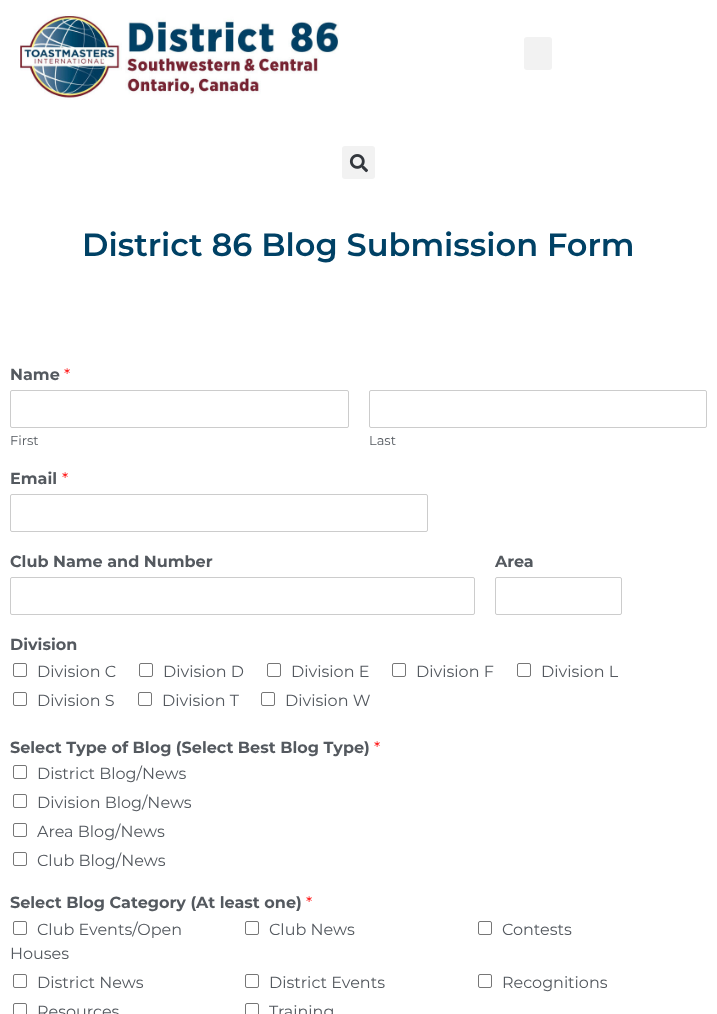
<svg xmlns="http://www.w3.org/2000/svg" width="717" height="1014" viewBox="0 0 717 1014">
  <style>
    .t1 { font: 600 32px Montserrat; fill: #004165; }
    .t2 { font: bold 16px Montserrat; fill: #54595f; }
    .t3 { font: 16px Montserrat; fill: #f00; }
    .t4 { font: 13px Montserrat; fill: #54595f; }
    .t5 { font: 16px Montserrat; fill: #54595f; }
  </style>
  <rect width="100%" height="100%" fill="#fff"/>
  <image x="20" y="14" width="319" height="86" href="images/1.png"/>
  <rect x="524" y="37" width="28" height="33" rx="3" fill="#f2f2f2"/>
  <rect x="342" y="146" width="33" height="33" rx="3" fill="#f2f2f2"/>
  <image x="349" y="154" width="19" height="19" href="images/2.png"/>
  <text x="82" y="256" class="t1">District 86 Blog Submission Form</text>
  <text x="10" y="380" class="t2">Name</text>
  <text x="64" y="380" class="t3">*</text>
  <rect x="10.5" y="390.5" width="338" height="37" rx="1.5" fill="none" stroke="#ccc"/>
  <text x="10" y="445" class="t4">First</text>
  <rect x="369.5" y="390.5" width="337" height="37" rx="1.5" fill="none" stroke="#ccc"/>
  <text x="369" y="445" class="t4">Last</text>
  <text x="10" y="484" class="t2">Email</text>
  <text x="62" y="484" class="t3">*</text>
  <rect x="10.5" y="494.5" width="417" height="37" rx="1.5" fill="none" stroke="#ccc"/>
  <text x="10" y="567" class="t2">Club Name and Number</text>
  <rect x="10.5" y="577.5" width="464" height="37" rx="1.5" fill="none" stroke="#ccc"/>
  <text x="495" y="567" class="t2">Area</text>
  <rect x="495.5" y="577.5" width="126" height="37" rx="1.5" fill="none" stroke="#ccc"/>
  <text x="10" y="650" class="t2">Division</text>
  <rect x="13.5" y="663.5" width="13" height="13" rx="1.5" fill="none" stroke="#767676"/>
  <text x="37" y="677" class="t5">Division C</text>
  <rect x="139.5" y="663.5" width="13" height="13" rx="1.5" fill="none" stroke="#767676"/>
  <text x="163" y="677" class="t5">Division D</text>
  <rect x="267.5" y="663.5" width="13" height="13" rx="1.5" fill="none" stroke="#767676"/>
  <text x="291" y="677" class="t5">Division E</text>
  <rect x="392.5" y="663.5" width="13" height="13" rx="1.5" fill="none" stroke="#767676"/>
  <text x="416" y="677" class="t5">Division F</text>
  <rect x="517.5" y="663.5" width="13" height="13" rx="1.5" fill="none" stroke="#767676"/>
  <text x="541" y="677" class="t5">Division L</text>
  <rect x="13.5" y="692.5" width="13" height="13" rx="1.5" fill="none" stroke="#767676"/>
  <text x="37" y="706" class="t5">Division S</text>
  <rect x="138.5" y="692.5" width="13" height="13" rx="1.5" fill="none" stroke="#767676"/>
  <text x="162" y="706" class="t5">Division T</text>
  <rect x="261.5" y="692.5" width="13" height="13" rx="1.5" fill="none" stroke="#767676"/>
  <text x="285" y="706" class="t5">Division W</text>
  <text x="10" y="753" class="t2">Select Type of Blog (Select Best Blog Type)</text>
  <text x="374" y="753" class="t3">*</text>
  <rect x="13.5" y="765.5" width="13" height="13" rx="1.5" fill="none" stroke="#767676"/>
  <text x="37" y="779" class="t5">District Blog/News</text>
  <rect x="13.5" y="794.5" width="13" height="13" rx="1.5" fill="none" stroke="#767676"/>
  <text x="37" y="808" class="t5">Division Blog/News</text>
  <rect x="13.5" y="823.5" width="13" height="13" rx="1.5" fill="none" stroke="#767676"/>
  <text x="37" y="837" class="t5">Area Blog/News</text>
  <rect x="13.5" y="852.5" width="13" height="13" rx="1.5" fill="none" stroke="#767676"/>
  <text x="37" y="866" class="t5">Club Blog/News</text>
  <text x="10" y="908" class="t2">Select Blog Category (At least one)</text>
  <text x="306" y="908" class="t3">*</text>
  <rect x="13.5" y="921.5" width="13" height="13" rx="1.5" fill="none" stroke="#767676"/>
  <text x="37" y="935" class="t5">Club Events/Open</text>
  <text x="10" y="959" class="t5">Houses</text>
  <rect x="245.5" y="921.5" width="13" height="13" rx="1.5" fill="none" stroke="#767676"/>
  <text x="269" y="935" class="t5">Club News</text>
  <rect x="478.5" y="921.5" width="13" height="13" rx="1.5" fill="none" stroke="#767676"/>
  <text x="502" y="935" class="t5">Contests</text>
  <rect x="13.5" y="974.5" width="13" height="13" rx="1.5" fill="none" stroke="#767676"/>
  <text x="37" y="988" class="t5">District News</text>
  <rect x="245.5" y="974.5" width="13" height="13" rx="1.5" fill="none" stroke="#767676"/>
  <text x="269" y="988" class="t5">District Events</text>
  <rect x="478.5" y="974.5" width="13" height="13" rx="1.5" fill="none" stroke="#767676"/>
  <text x="502" y="988" class="t5">Recognitions</text>
  <rect x="13.5" y="1003.5" width="13" height="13" rx="1.5" fill="none" stroke="#767676"/>
  <text x="37" y="1017" class="t5">Resources</text>
  <rect x="245.5" y="1003.5" width="13" height="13" rx="1.5" fill="none" stroke="#767676"/>
  <text x="269" y="1017" class="t5">Training</text>
</svg>
